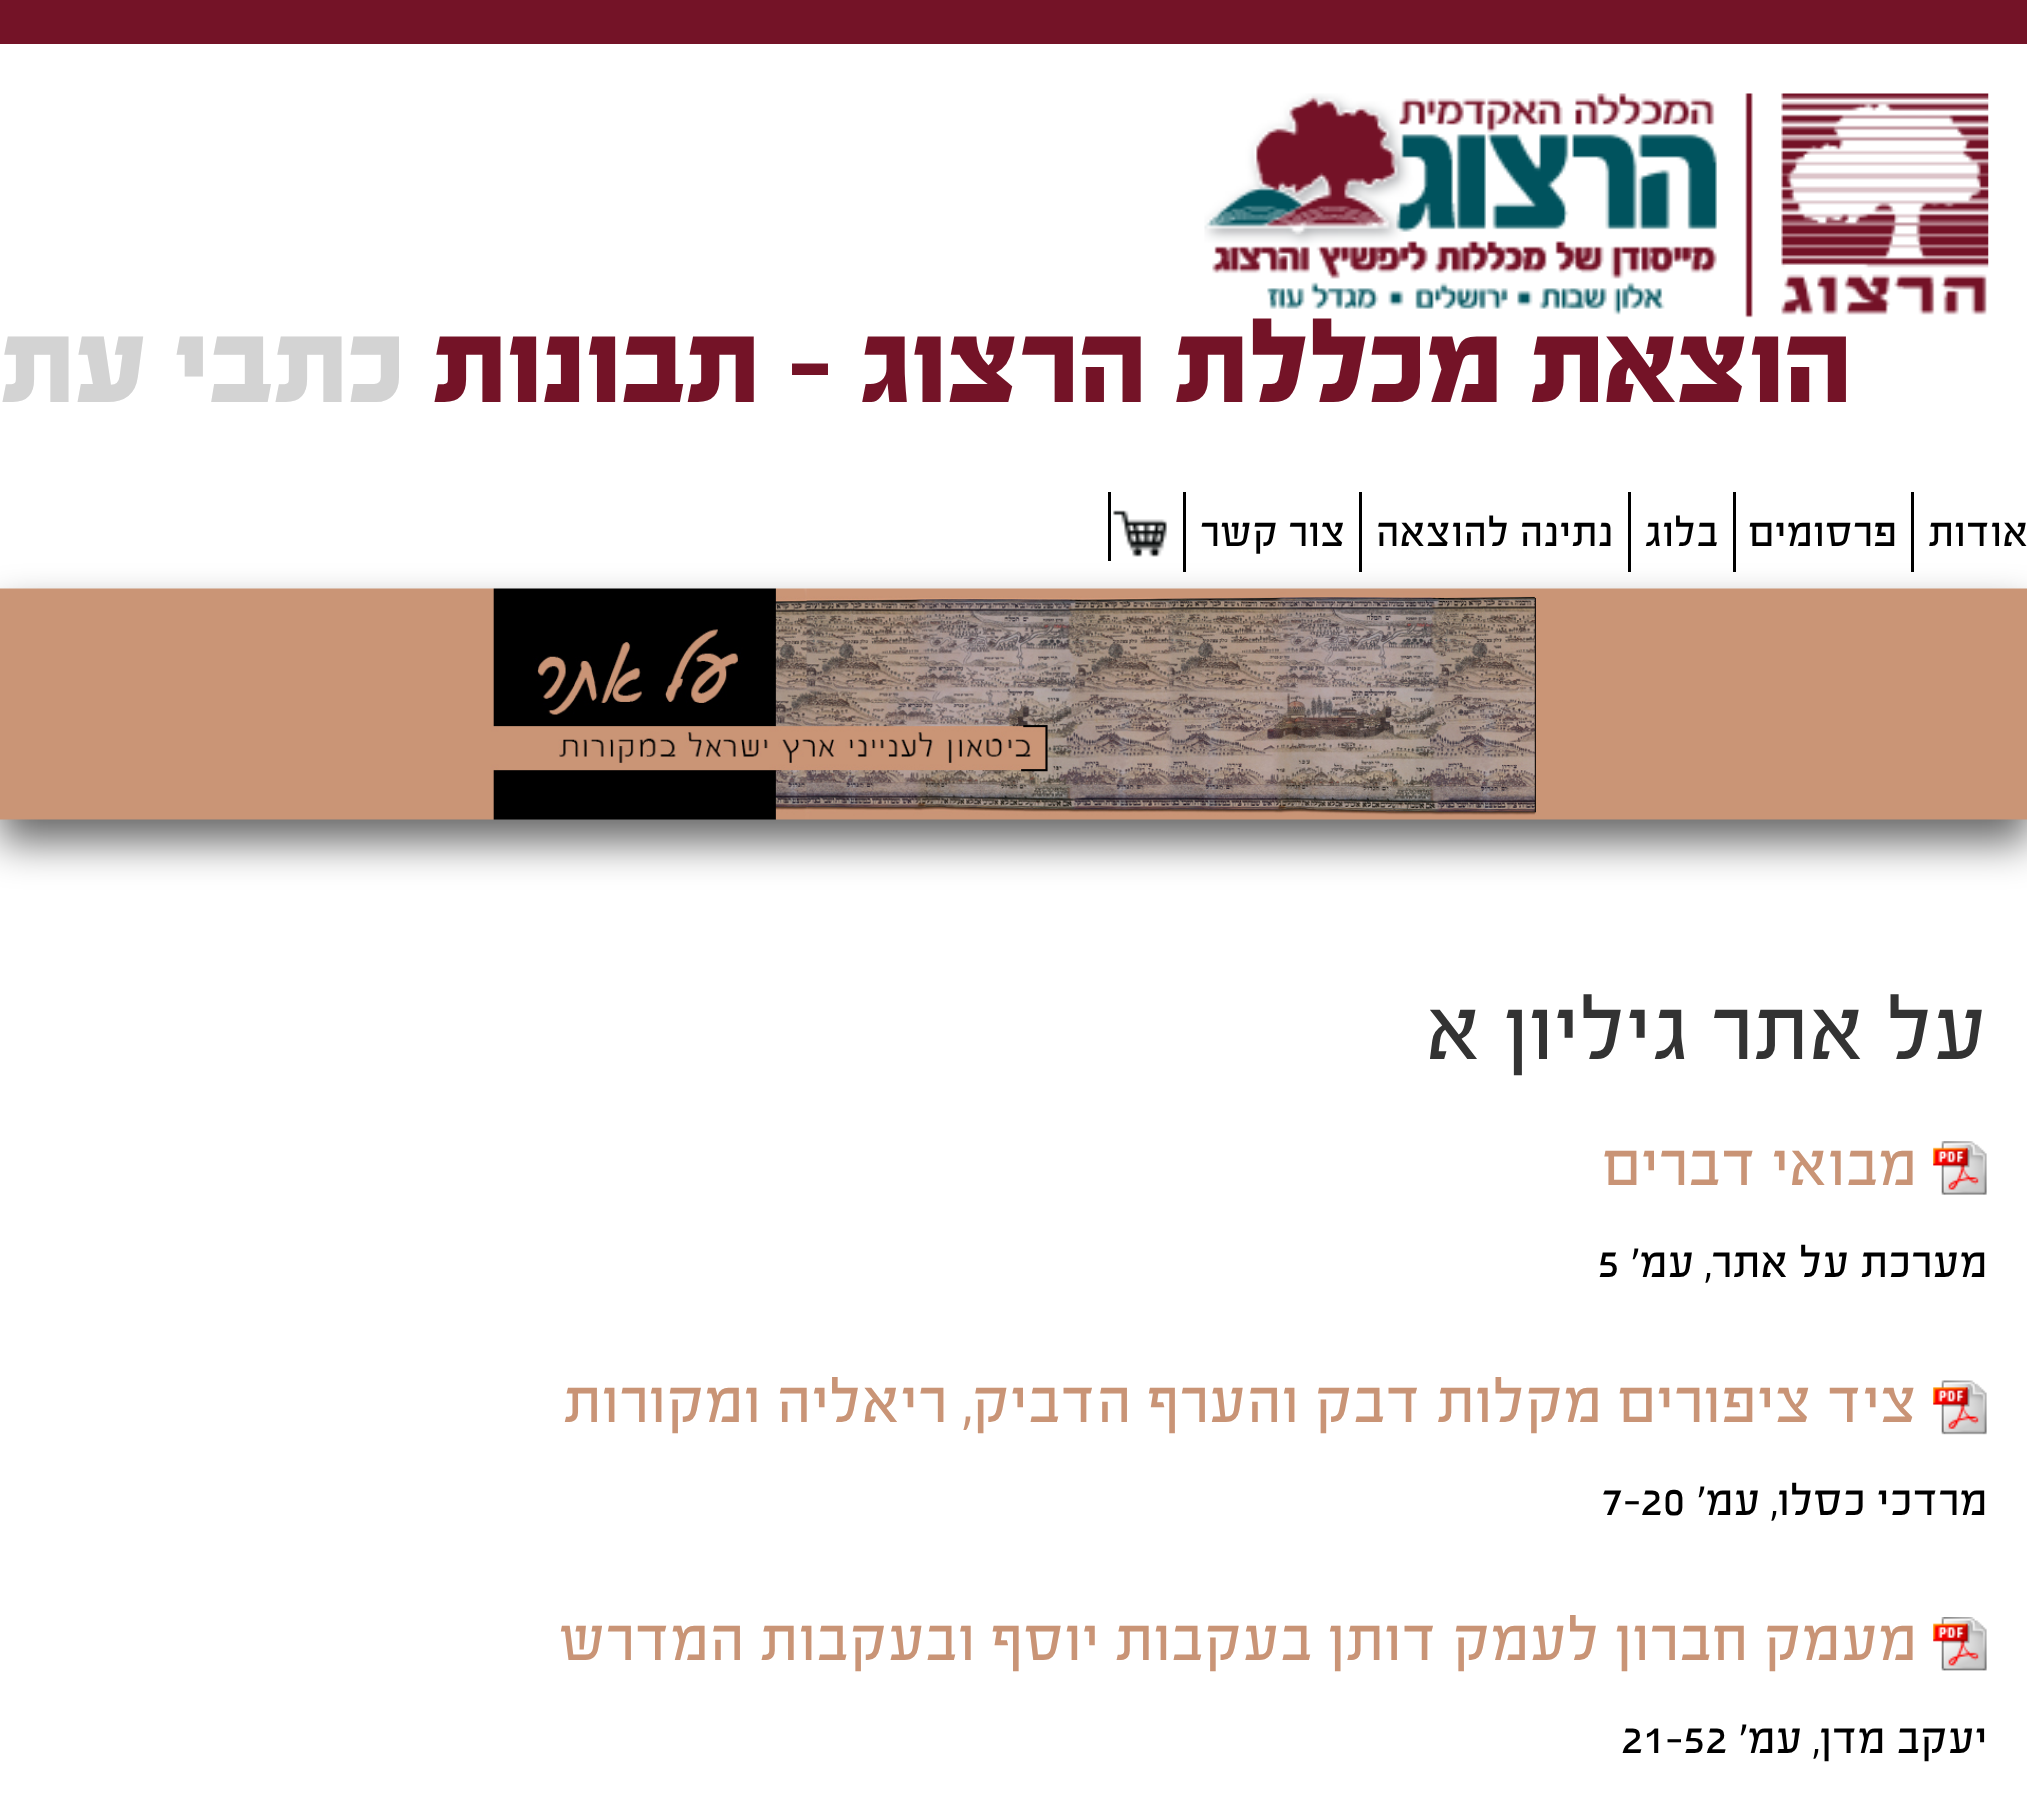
<svg xmlns="http://www.w3.org/2000/svg" width="2027" height="1814" viewBox="0 0 2027 1814">
  <style>
    .t1 { font: bold 132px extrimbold; direction: rtl; fill: #741327; }
    .t2 { font: bold 132px extrimbold; direction: rtl; fill: #d3d3d3; }
    .t3 { font: 46.75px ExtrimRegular; direction: rtl; fill: #000; }
    .t4 { font: 99px ExtrimRegular; direction: rtl; fill: #333; }
    .t5 { font: 68.75px ExtrimRegular; direction: rtl; fill: #c99476; }
    .t6 { font: 49.5px ExtrimRegular; direction: rtl; fill: #000; }
    .t7 { font: 49.5px ExtrimRegular; fill: #000; }
  </style>
  <rect width="100%" height="100%" fill="#fff"/>
  <rect x="0" y="0" width="2027" height="44" fill="#741327"/>
  <image x="1204" y="93" width="785" height="225" href="images/1.png"/>
  <text x="1852" y="402" class="t1">הוצאת מכללת הרצוג - תבונות</text>
  <text x="405" y="402" class="t2">כתבי עת</text>
  <rect x="0" y="611" width="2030" height="231" fill="#00000099" filter="blur(20.5px)"/>
  <rect x="1911" y="492" width="3" height="80" fill="#000"/>
  <text x="2029" y="546" class="t3">אודות</text>
  <rect x="1733" y="492" width="3" height="80" fill="#000"/>
  <text x="1898" y="546" class="t3">פרסומים</text>
  <rect x="1628" y="492" width="3" height="80" fill="#000"/>
  <text x="1719" y="546" class="t3">בלוג</text>
  <rect x="1359" y="492" width="3" height="80" fill="#000"/>
  <text x="1614" y="546" class="t3">נתינה להוצאה</text>
  <rect x="1183" y="492" width="3" height="80" fill="#000"/>
  <text x="1346" y="546" class="t3">צור קשר</text>
  <rect x="1108" y="492" width="3" height="69" fill="#000"/>
  <image x="1113" y="510" width="54" height="47" href="images/2.png"/>
  <image x="0" y="588" width="2027" height="232" href="images/3.png"/>
  <text x="1988" y="1059" class="t4">על אתר גיליון א</text>
  <image x="1933" y="1141" width="54" height="54" href="images/4.png"/>
  <text x="1918" y="1185" class="t5">מבואי דברים</text>
  <text x="1988" y="1277" class="t6">מערכת על אתר,</text>
  <text x="1695" y="1277" class="t6">עמ'</text>
  <text x="1597" y="1277" class="t7">5</text>
  <image x="1933" y="1380" width="54" height="55" href="images/5.png"/>
  <text x="1918" y="1422" class="t5">ציד ציפורים מקלות דבק והערף הדביק, ריאליה ומקורות</text>
  <text x="1988" y="1515" class="t6">מרדכי כסלו,</text>
  <text x="1761" y="1515" class="t6">עמ'</text>
  <text x="1601" y="1515" class="t7">7-20</text>
  <image x="1933" y="1617" width="54" height="54" href="images/6.png"/>
  <text x="1918" y="1660" class="t5">מעמק חברון לעמק דותן בעקבות יוסף ובעקבות המדרש</text>
  <text x="1988" y="1753" class="t6">יעקב מדן,</text>
  <text x="1803" y="1753" class="t6">עמ'</text>
  <text x="1621" y="1753" class="t7">21-52</text>
</svg>
